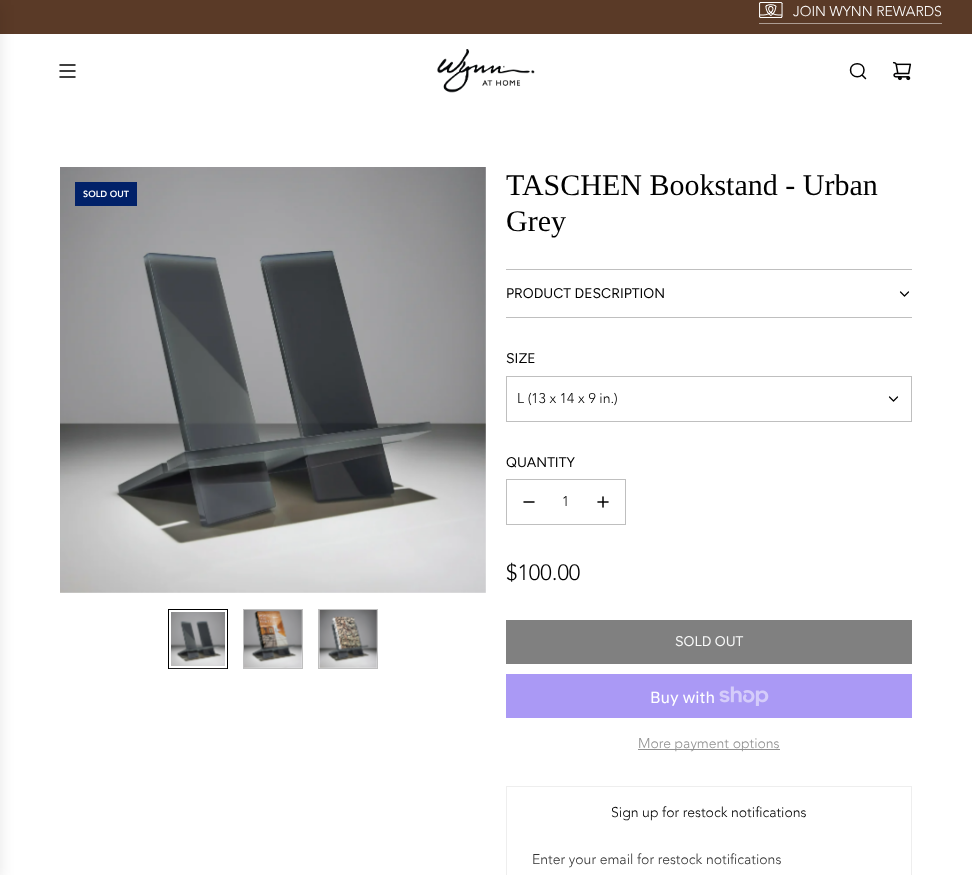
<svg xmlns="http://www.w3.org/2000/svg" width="972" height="875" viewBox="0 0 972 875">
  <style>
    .t1 { font: 300 14px Avenir; fill: #fff; }
    .t2 { font: 900 9px Avenir; fill: #fff; }
    .t3 { font: 30px Liberation Serif; fill: #000; }
    .t4 { font: 14px Figtree; fill: #000; }
    .t5 { font: 300 14px Avenir; fill: #000; }
    .t6 { font: 300 22px Avenir; fill: #000; }
    .t7 { font: 14px Figtree; fill: #f9fafa; }
    .t8 { font: 16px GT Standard; fill: #fff; }
    .t9 { font: 300 14px Avenir; fill: #919191; }
    .t10 { font: 300 14px Avenir; fill: #333; }
  </style>
  <rect width="100%" height="100%" fill="#fff"/>
  <rect x="0" y="0" width="972" height="34" fill="#5a3a27"/>
  <rect x="-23" y="5" width="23" height="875" fill="#0000001a" filter="blur(7.5px)"/>
  <path d="M60 65H75M60 71H75M60 77H75" fill="none" stroke="#000" stroke-width="1.5" stroke-linecap="round" stroke-linejoin="round"/>
  <image x="437" y="49" width="98" height="44" href="images/1.png"/>
  <path d="M862 75L865.5 78.5M850.5 70C850.5 79 864 79 864 70C864 61.5 850.5 61.5 850.5 70Z" fill="none" stroke="#000" stroke-width="1.5" stroke-linecap="round" stroke-linejoin="round"/>
  <image x="892" y="61" width="20" height="20" href="images/2.png"/>
  <rect x="759" y="23" width="183" height="1" fill="#ad9d93"/>
  <image x="759" y="2" width="24" height="16" href="images/3.png"/>
  <text x="793" y="16" class="t1">JOIN WYNN REWARDS</text>
  <image x="60" y="167" width="426" height="426" href="images/4.png"/>
  <rect x="75" y="182" width="62" height="24" fill="#012169"/>
  <text x="83" y="197" class="t2">SOLD OUT</text>
  <rect x="168.5" y="609.5" width="59" height="59" fill="none" stroke="#000"/>
  <image x="169" y="612" width="58" height="57" href="images/5.png"/>
  <rect x="170" y="611" width="56" height="56" fill="none" stroke="#fff" stroke-width="2"/>
  <rect x="243.5" y="609.5" width="59" height="59" fill="none" stroke="#bfbfbf"/>
  <image x="244" y="610" width="58" height="58" href="images/6.png"/>
  <rect x="318.5" y="609.5" width="59" height="59" fill="none" stroke="#bfbfbf"/>
  <image x="319" y="610" width="58" height="58" href="images/7.png"/>
  <text x="506" y="195" class="t3">TASCHEN Bookstand - Urban</text>
  <text x="506" y="231" class="t3">Grey</text>
  <rect x="506" y="269" width="406" height="1" fill="#bfbfbf"/>
  <rect x="506" y="317" width="406" height="1" fill="#bfbfbf"/>
  <text x="506" y="298" class="t4">PRODUCT DESCRIPTION</text>
  <path d="M900.5 292L904.5 296L908.5 292" fill="none" stroke="#000" stroke-width="1.2" stroke-linecap="round" stroke-linejoin="round"/>
  <text x="506" y="363" class="t4">SIZE</text>
  <rect x="506.5" y="376.5" width="405" height="45" fill="none" stroke="#bfbfbf"/>
  <text x="517" y="403" class="t5">L (13 x 14 x 9 in.)</text>
  <path d="M889.5 397L893.5 401L897.5 397" fill="none" stroke="#000" stroke-width="1.2" stroke-linecap="round" stroke-linejoin="round"/>
  <text x="506" y="467" class="t4">QUANTITY</text>
  <rect x="506.5" y="479.5" width="119" height="45" fill="none" stroke="#bfbfbf"/>
  <path d="M524 502H534" fill="none" stroke="#000" stroke-width="1.5" stroke-linecap="round" stroke-linejoin="round"/>
  <text x="562" y="506" class="t5">1</text>
  <image x="597" y="496" width="12" height="12" href="images/8.png"/>
  <text x="506" y="580" class="t6">$100.00</text>
  <rect x="506" y="620" width="406" height="44" fill="#808080"/>
  <text x="675" y="646" class="t7">SOLD OUT</text>
  <rect x="506" y="674" width="406" height="44" fill="#aa99f5"/>
  <text x="650" y="703" class="t8">Buy with</text>
  <image x="719" y="686" width="50" height="20" href="images/9.png"/>
  <rect x="638" y="749" width="142" height="1" fill="#919191"/>
  <text x="638" y="748" class="t9">More payment options</text>
  <rect x="506.5" y="786.5" width="405" height="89" fill="none" stroke="#eee"/>
  <text x="611" y="817" class="t5">Sign up for restock notifications</text>
  <text x="532" y="864" class="t10">Enter your email for restock notifications</text>
</svg>
